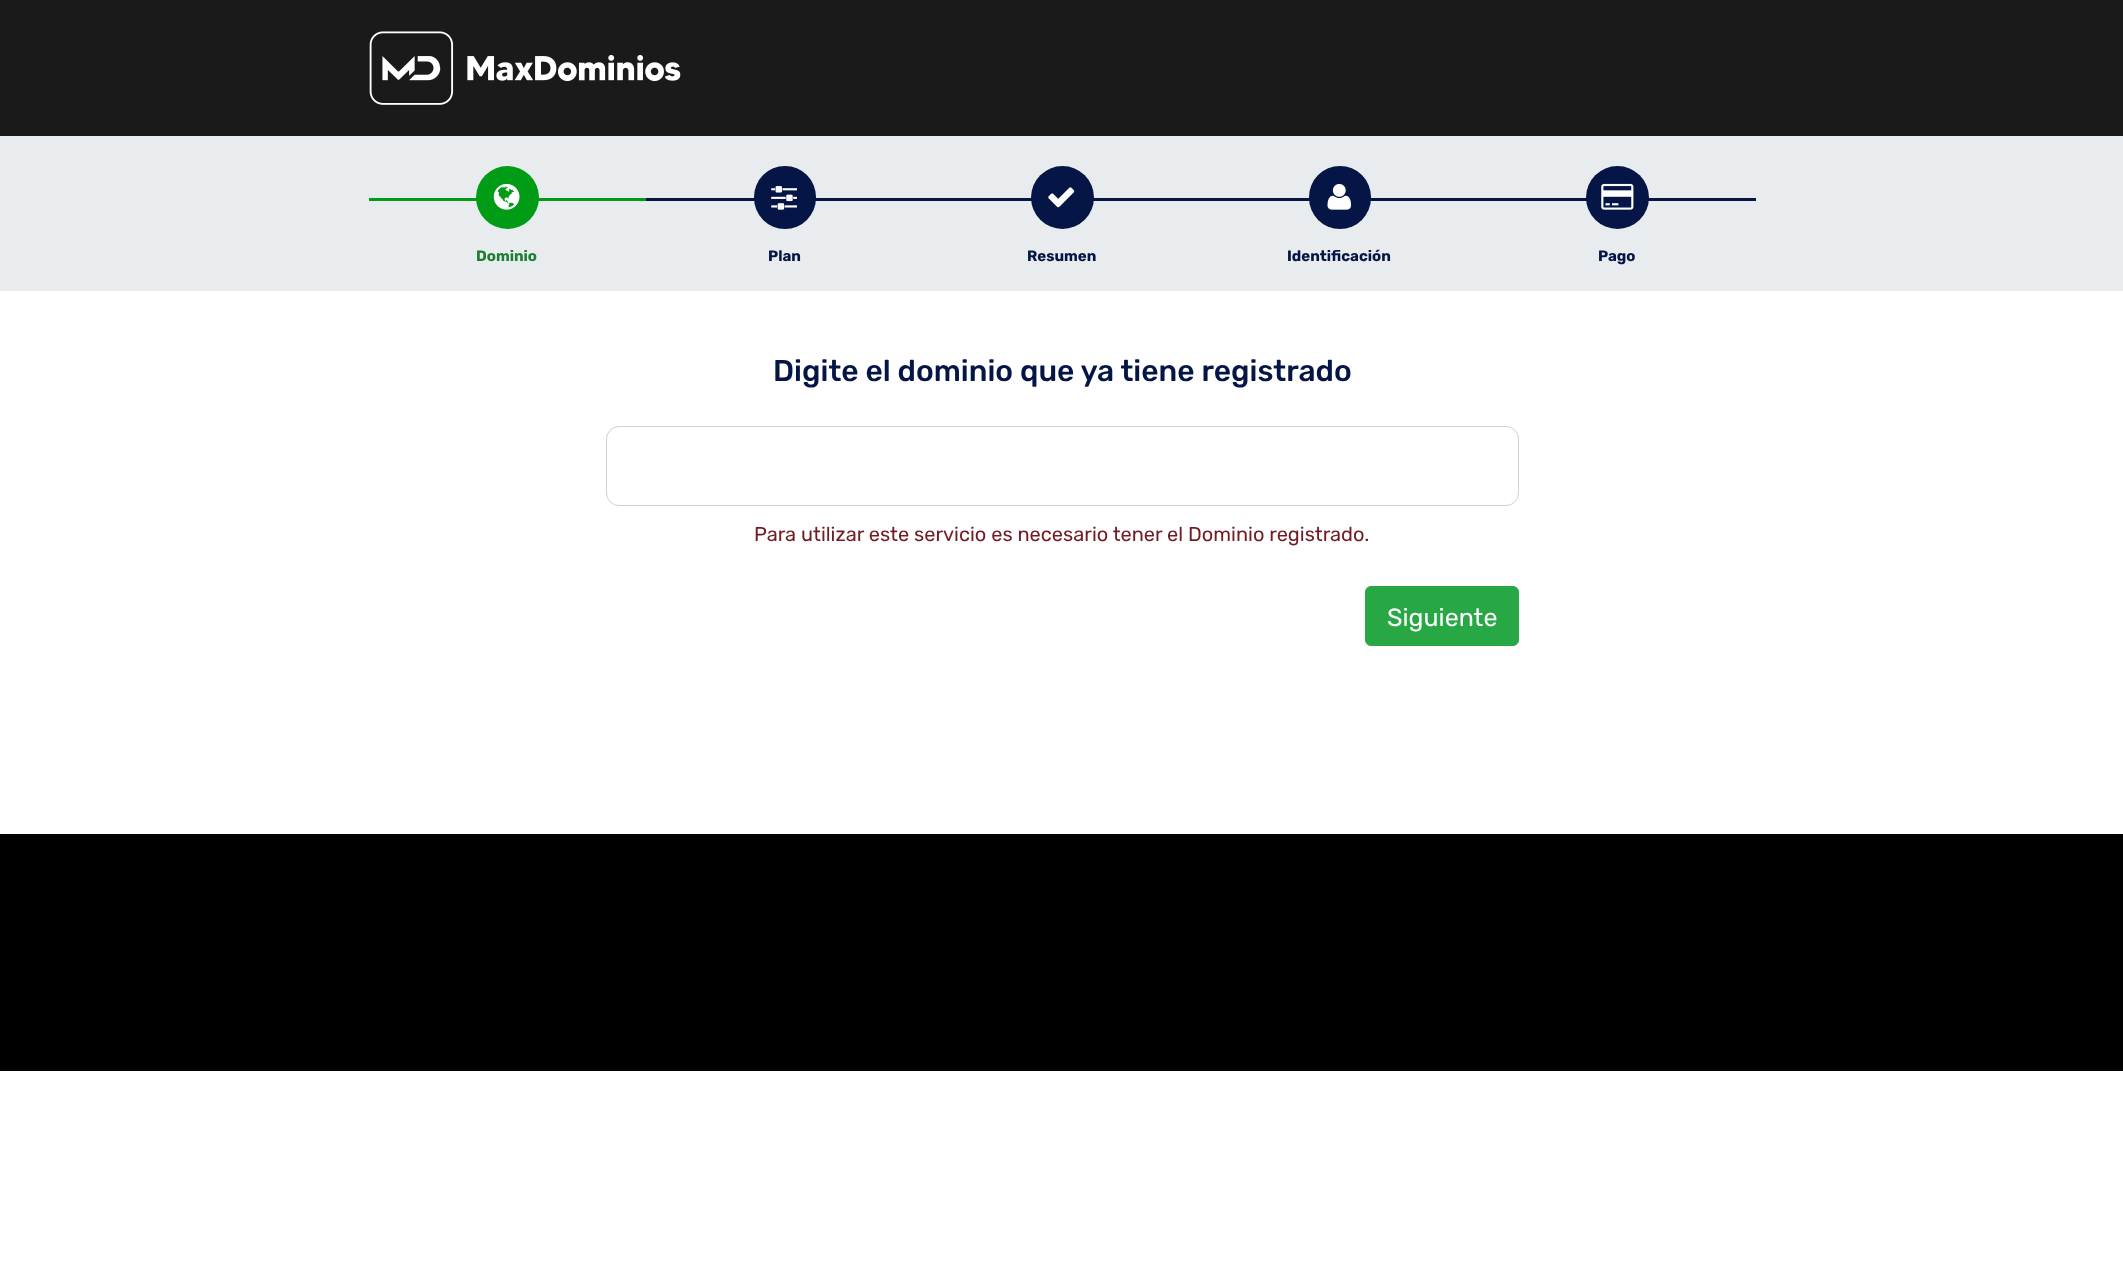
<svg xmlns="http://www.w3.org/2000/svg" width="2123" height="1261" viewBox="0 0 2123 1261">
  <style>
    .t1 { font: bold 15px Rubik; fill: #1e7e34; }
    .t2 { font: bold 15px Rubik; fill: #051646; }
    .t3 { font: 500 30px Rubik; fill: #051646; }
    .t4 { font: 20px Rubik; fill: #721c24; }
    .t5 { font: 25px Rubik; fill: #fff; }
  </style>
  <rect width="100%" height="100%" fill="#fff"/>
  <rect x="0" y="0" width="2123" height="136" fill="#1a1a1a"/>
  <image x="369" y="31" width="312" height="74" href="images/1.png"/>
  <rect x="0" y="136" width="2123" height="155" fill="#e9ecef"/>
  <rect x="369" y="198" width="277" height="3" fill="#009c15"/>
  <circle cx="507.5" cy="197.5" r="31.5" fill="#009c15"/>
  <image x="493" y="183" width="27" height="27" href="images/2.png"/>
  <text x="476" y="261" class="t1">Dominio</text>
  <rect x="646" y="198" width="1110" height="3" fill="#051646"/>
  <rect x="754" y="166" width="62" height="63" rx="31" fill="#051646"/>
  <image x="771" y="186" width="26" height="24" href="images/3.png"/>
  <text x="768" y="261" class="t2">Plan</text>
  <circle cx="1062.5" cy="197.5" r="31.5" fill="#051646"/>
  <image x="1048" y="187" width="27" height="21" href="images/4.png"/>
  <text x="1027" y="261" class="t2">Resumen</text>
  <rect x="1309" y="166" width="62" height="63" rx="31" fill="#051646"/>
  <image x="1327" y="183" width="25" height="27" href="images/5.png"/>
  <text x="1287" y="261" class="t2">Identificación</text>
  <circle cx="1617.5" cy="197.5" r="31.5" fill="#051646"/>
  <image x="1601" y="183" width="33" height="27" href="images/6.png"/>
  <text x="1598" y="261" class="t2">Pago</text>
  <text x="773" y="381" class="t3">Digite el dominio que ya tiene registrado</text>
  <rect x="606.5" y="426.5" width="912" height="79" rx="12.5" fill="none" stroke="#ccd2dc"/>
  <text x="754" y="541" class="t4">Para utilizar este servicio es necesario tener el Dominio registrado.</text>
  <rect x="1365.5" y="586.5" width="153" height="59" rx="5.5" fill="#28a745" stroke="#28a745"/>
  <text x="1387" y="626" class="t5">Siguiente</text>
  <rect x="0" y="834" width="2123" height="237" fill="#000"/>
</svg>
